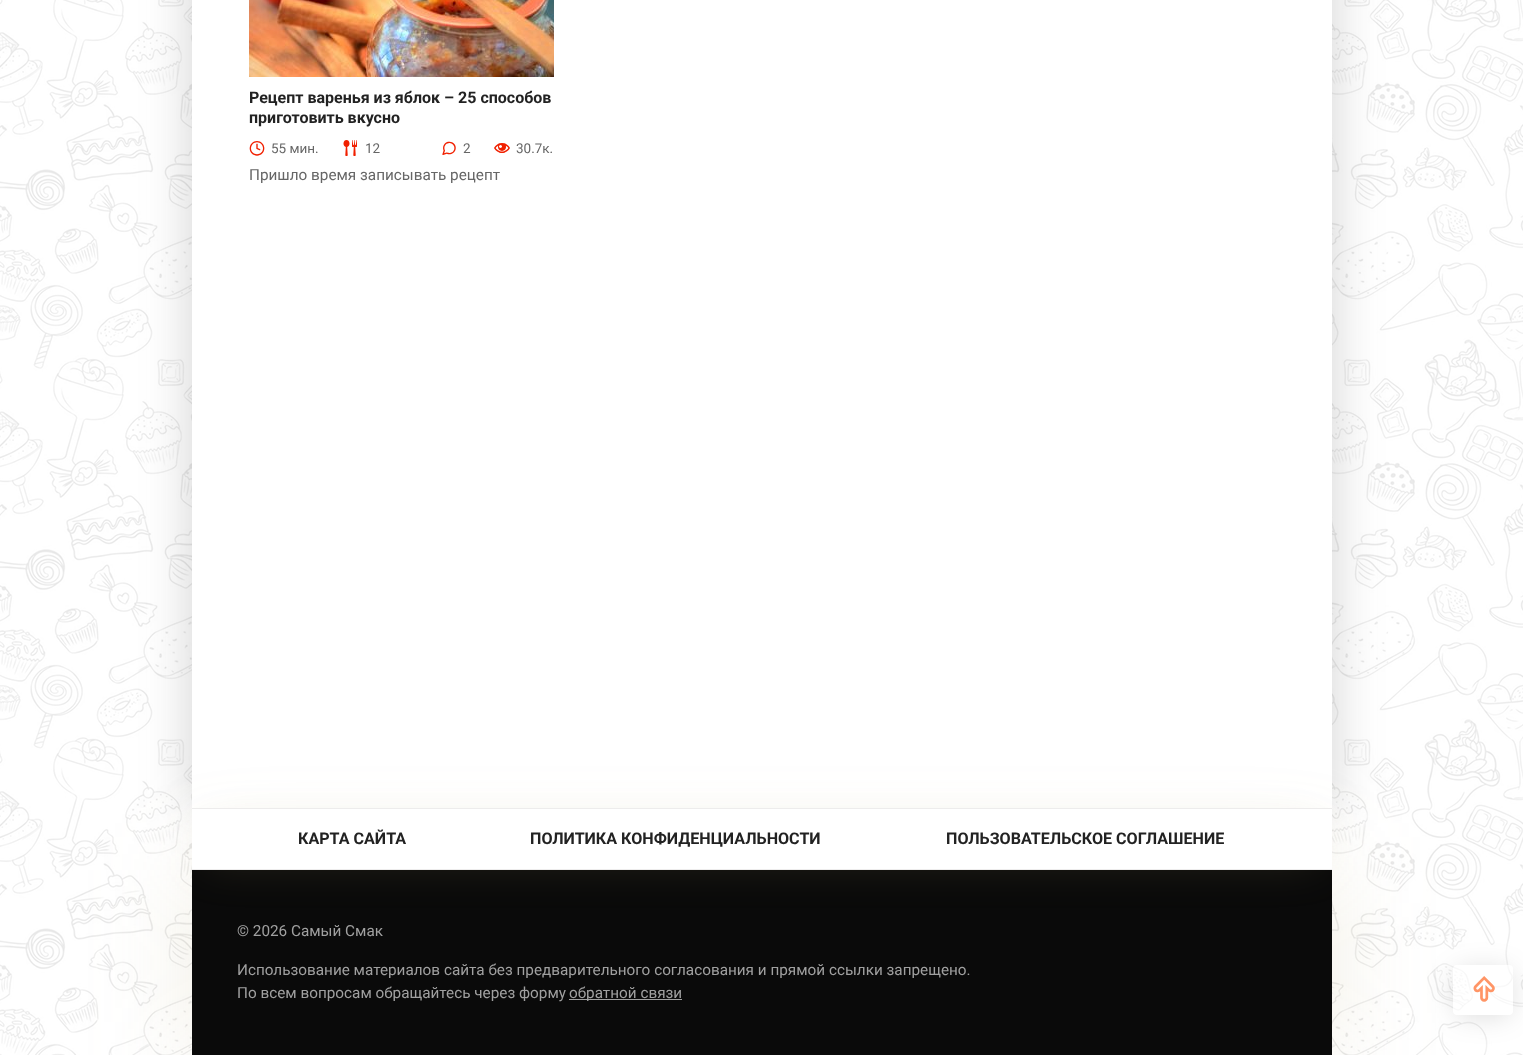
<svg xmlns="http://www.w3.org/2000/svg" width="1523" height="1055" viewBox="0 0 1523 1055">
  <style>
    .t1 { font: bold 16px Roboto; fill: #222; }
    .t2 { font: 16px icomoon; fill: #f12000; }
    .t3 { font: 13.5px Roboto; fill: #666; }
    .t4 { font: 15.3px Roboto; fill: #666; }
    .t5 { font: bold 16.1px Roboto; fill: #222; }
    .t6 { font: 15.3px Roboto; fill: #a0a0a0; }
    .t7 { font: 32px icomoon; fill: #ff9566; }
  </style>
  <defs>
    <clipPath id="clip1"><path d="M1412 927H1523V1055H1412ZM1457 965H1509C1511 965 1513 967 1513 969V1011C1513 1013 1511 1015 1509 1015H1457C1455 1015 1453 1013 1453 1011V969C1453 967 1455 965 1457 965Z" clip-rule="evenodd"/></clipPath>
  </defs>
  <rect width="100%" height="100%" fill="#fff"/>
  <image x="0" y="0" width="1523" height="1055" href="images/1.png"/>
  <rect x="192" y="-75" width="1140" height="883" fill="#46464640" filter="blur(25px)"/>
  <rect x="192" y="0" width="1140" height="808" fill="#fff"/>
  <image x="249" y="0" width="305" height="77" href="images/2.png"/>
  <text x="249" y="103" class="t1">Рецепт варенья из яблок – 25 способов</text>
  <text x="249" y="123" class="t1">приготовить вкусно</text>
  <text x="249" y="155" class="t2">🕒</text>
  <text x="271" y="153" class="t3">55 мин.</text>
  <text x="343" y="155" class="t2">🍴</text>
  <text x="365" y="153" class="t3">12</text>
  <text x="441" y="155" class="t2">💭</text>
  <text x="463" y="153" class="t3">2</text>
  <text x="494" y="155" class="t2">👁</text>
  <text x="516" y="153" class="t3">30.7к.</text>
  <text x="249" y="180" class="t4">Пришло время записывать рецепт</text>
  <rect x="192" y="870" width="1140" height="185" fill="#b2a56930" filter="blur(50px)"/>
  <rect x="192" y="870" width="1140" height="185" fill="#0a0a0a"/>
  <rect x="206" y="827" width="1112" height="34" fill="#b2a56930" filter="blur(22.5px)"/>
  <rect x="192" y="809" width="1140" height="60" fill="#fff"/>
  <rect x="192" y="808" width="1140" height="1" fill="#edecec"/>
  <rect x="192" y="869" width="1140" height="1" fill="#edecec"/>
  <text x="298" y="844" class="t5">КАРТА САЙТА</text>
  <text x="530" y="844" class="t5">ПОЛИТИКА КОНФИДЕНЦИАЛЬНОСТИ</text>
  <text x="946" y="844" class="t5">ПОЛЬЗОВАТЕЛЬСКОЕ СОГЛАШЕНИЕ</text>
  <text x="237" y="936" class="t6">© 2026 Самый Смак</text>
  <text x="237" y="975" class="t6">Использование материалов сайта без предварительного согласования и прямой ссылки запрещено.</text>
  <text x="237" y="998" class="t6">По всем вопросам обращайтесь через форму</text>
  <rect x="569" y="999" width="113" height="1" fill="#a0a0a0"/>
  <text x="569" y="998" class="t6">обратной связи</text>
  <g clip-path="url(#clip1)">
    <rect x="1458" y="973" width="50" height="40" fill="#0000002e" filter="blur(15px)"/>
  </g>
  <rect x="1453" y="965" width="60" height="50" rx="4" fill="#ffffff99"/>
  <text x="1467" y="1003" class="t7">△</text>
</svg>
